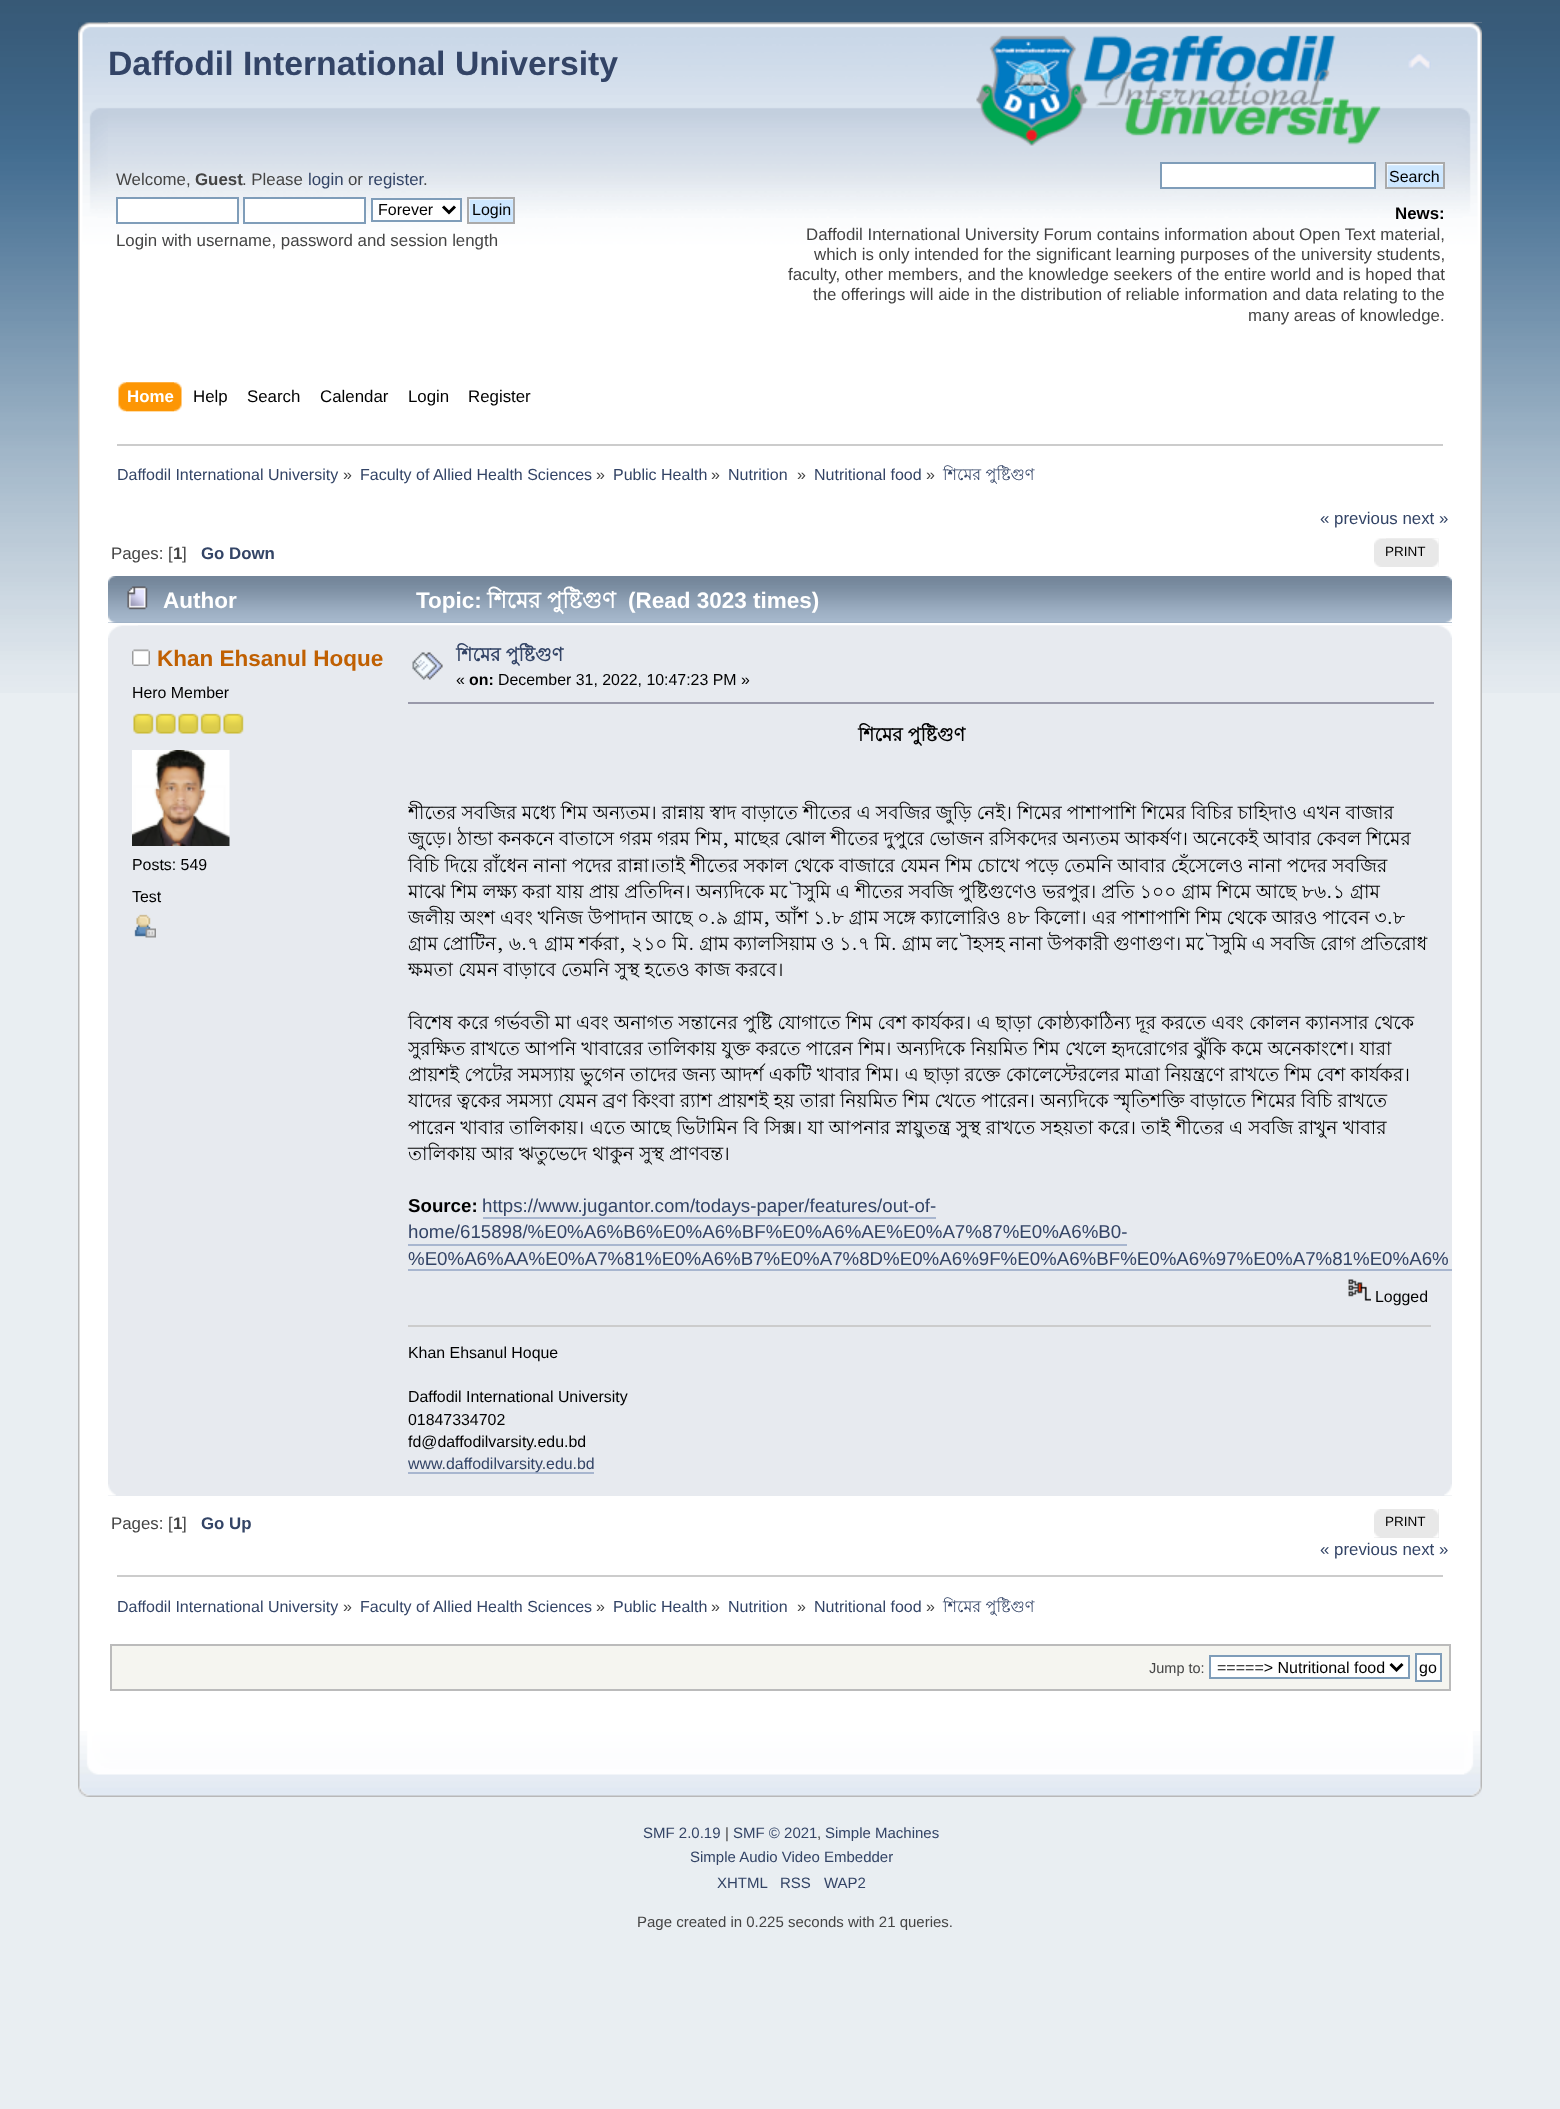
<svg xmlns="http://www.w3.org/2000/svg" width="1560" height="2109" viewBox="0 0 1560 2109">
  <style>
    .t1 { font: bold 33.75px Liberation Sans; fill: #346; }
    .t2 { font: 16.85px Liberation Sans; fill: #444; }
    .t3 { font: bold 16.85px Liberation Sans; fill: #444; }
    .t4 { font: 16.85px Liberation Sans; fill: #346; }
    .t5 { font: 16px Liberation Sans; fill: #000; }
    .t6 { font: bold 16.85px Liberation Sans; fill: #000; }
    .t7 { font: bold 16.85px Liberation Sans; fill: #fff; }
    .t8 { font: 16.85px Liberation Sans; fill: #000; }
    .t9 { font: 16px Liberation Sans; fill: #346; }
    .t10 { font: 16px Liberation Sans; fill: #444; }
    .t11 { font: 16px Lohit Bengali; fill: #346; }
    .t12 { font: bold 16.85px Liberation Sans; fill: #346; }
    .t13 { font: 13.5px Liberation Sans; fill: #000; }
    .t14 { font: bold 22.5px Liberation Sans; fill: #fff; }
    .t15 { font: bold 22.5px Lohit Bengali; fill: #fff; }
    .t16 { font: bold 22.5px Liberation Sans; fill: #c06002; }
    .t17 { font: 15.9px Liberation Sans; fill: #000; }
    .t18 { font: bold 18.72px Lohit Bengali; fill: #346; }
    .t19 { font: bold 15.9px Liberation Sans; fill: #000; }
    .t20 { font: bold 18.72px Lohit Bengali; fill: #000; }
    .t21 { font: 18.72px Lohit Bengali; fill: #000; }
    .t22 { font: bold 18.72px Liberation Sans; fill: #000; }
    .t23 { font: 18.72px Liberation Sans; fill: #346; }
    .t24 { font: 15.9px Liberation Sans; fill: #346; }
    .t25 { font: 14.5px Liberation Sans; fill: #444; }
    .t26 { font: 15px Liberation Sans; fill: #346; }
    .t27 { font: 15px Liberation Sans; fill: #444; }
  </style>
  <defs>
    <clipPath id="clip1"><rect x="408" y="701" width="1044" height="577"/></clipPath>
  </defs>
  <rect width="100%" height="100%" fill="#e9eef2"/>
  <image x="0" y="0" width="1560" height="693" href="images/1.png"/>
  <image x="78" y="22" width="1404" height="413" href="images/2.png"/>
  <image x="108" y="22" width="1374" height="413" href="images/3.png"/>
  <text x="108" y="75" class="t1">Daffodil International University</text>
  <image x="976" y="35" width="405" height="111" href="images/4.png"/>
  <image x="1408" y="53" width="23" height="17" href="images/5.png"/>
  <text x="116" y="185" class="t2">Welcome,</text>
  <text x="195" y="185" class="t3">Guest</text>
  <text x="242" y="185" class="t2">. Please</text>
  <text x="308" y="185" class="t4">login</text>
  <text x="348" y="185" class="t2">or</text>
  <text x="368" y="185" class="t4">register</text>
  <text x="423" y="185" class="t2">.</text>
  <rect x="117" y="198" width="121" height="25" fill="#fff" stroke="#7f9db9" stroke-width="2"/>
  <rect x="244" y="198" width="121" height="25" fill="#fff" stroke="#7f9db9" stroke-width="2"/>
  <rect x="372" y="199" width="89" height="22" fill="#fff" stroke="#7f9db9" stroke-width="2"/>
  <path d="M443 206.5L449 212.5L455 206.5" fill="none" stroke="#000" stroke-width="3"/>
  <text x="378" y="215" class="t5">Forever</text>
  <image x="469" y="199" width="44" height="23" href="images/6.png"/>
  <rect x="468" y="198" width="46" height="25" fill="none" stroke="#aaa" stroke-width="2"/>
  <text x="472" y="215" class="t5">Login</text>
  <text x="116" y="246" class="t2">Login with username, password and session length</text>
  <rect x="1161" y="163" width="214" height="25" fill="#fff" stroke="#7f9db9" stroke-width="2"/>
  <image x="1387" y="164" width="56" height="23" href="images/7.png"/>
  <rect x="1386" y="163" width="58" height="25" fill="none" stroke="#aaa" stroke-width="2"/>
  <text x="1389" y="182" class="t5">Search</text>
  <text x="1395" y="219" class="t6">News:</text>
  <text x="806" y="240" class="t2">Daffodil International University Forum contains information about Open Text material,</text>
  <text x="814" y="260" class="t2">which is only intended for the significant learning purposes of the university students,</text>
  <text x="788" y="280" class="t2">faculty, other members, and the knowledge seekers of the entire world and is hoped that</text>
  <text x="813" y="300" class="t2">the offerings will aide in the distribution of reliable information and data relating to the</text>
  <text x="1248" y="321" class="t2">many areas of knowledge.</text>
  <image x="126" y="382" width="56" height="30" href="images/8.png"/>
  <image x="118" y="382" width="56" height="30" href="images/9.png"/>
  <text x="127" y="402" class="t7">Home</text>
  <text x="193" y="402" class="t8">Help</text>
  <text x="247" y="402" class="t8">Search</text>
  <text x="320" y="402" class="t8">Calendar</text>
  <text x="408" y="402" class="t8">Login</text>
  <text x="468" y="402" class="t8">Register</text>
  <rect x="80" y="435" width="1400" height="1296" fill="#fff"/>
  <image x="78" y="435" width="2" height="1296" href="images/10.png"/>
  <image x="1480" y="435" width="2" height="1296" href="images/11.png"/>
  <rect x="117" y="444" width="1326" height="2" fill="#ccc"/>
  <text x="117" y="480" class="t9">Daffodil International University</text>
  <text x="343" y="480" class="t10">»</text>
  <text x="360" y="480" class="t9">Faculty of Allied Health Sciences</text>
  <text x="596" y="480" class="t10">»</text>
  <text x="613" y="480" class="t9">Public Health</text>
  <text x="711" y="480" class="t10">»</text>
  <text x="728" y="480" class="t9">Nutrition</text>
  <text x="797" y="480" class="t10">»</text>
  <text x="814" y="480" class="t9">Nutritional food</text>
  <text x="926" y="480" class="t10">»</text>
  <text x="943" y="480" class="t11">শিমের পুষ্টিগুণ</text>
  <text x="1320" y="524" class="t4">« previous next »</text>
  <text x="111" y="559" class="t2">Pages: [</text>
  <text x="173" y="559" class="t3">1</text>
  <text x="182" y="559" class="t2">]</text>
  <text x="201" y="559" class="t12">Go Down</text>
  <image x="1374" y="538" width="65" height="29" href="images/12.png"/>
  <image x="1386" y="538" width="53" height="29" href="images/13.png"/>
  <text x="1385" y="556" class="t13">PRINT</text>
  <rect x="108" y="622" width="1344" height="1" fill="#99abbf"/>
  <image x="108" y="576" width="1344" height="47" href="images/14.png"/>
  <image x="1445" y="576" width="7" height="47" href="images/15.png"/>
  <image x="127" y="586" width="21" height="24" href="images/16.png"/>
  <text x="163" y="608" class="t14">Author</text>
  <text x="416" y="608" class="t14">Topic:</text>
  <text x="487" y="608" class="t15">শিমের পুষ্টিগুণ</text>
  <text x="628" y="608" class="t14">(Read 3023 times)</text>
  <rect x="108" y="638" width="1344" height="858" fill="#e7eaef"/>
  <image x="108" y="625" width="1344" height="13" href="images/17.png"/>
  <image x="138" y="625" width="1314" height="13" href="images/18.png"/>
  <image x="132" y="649" width="18" height="17" href="images/19.png"/>
  <text x="157" y="666" class="t16">Khan Ehsanul Hoque</text>
  <text x="132" y="698" class="t17">Hero Member</text>
  <image x="133" y="713" width="21" height="21" href="images/20.png"/>
  <image x="155" y="713" width="21" height="21" href="images/21.png"/>
  <image x="178" y="713" width="21" height="21" href="images/20.png"/>
  <image x="200" y="713" width="21" height="21" href="images/21.png"/>
  <image x="223" y="713" width="21" height="21" href="images/20.png"/>
  <image x="132" y="750" width="98" height="96" href="images/22.png"/>
  <text x="132" y="870" class="t17">Posts: 549</text>
  <text x="132" y="902" class="t17">Test</text>
  <image x="134" y="914" width="22" height="24" href="images/23.png"/>
  <image x="412" y="652" width="31" height="28" href="images/24.png"/>
  <text x="456" y="661" class="t18">শিমের পুষ্টিগুণ</text>
  <text x="456" y="685" class="t17">«</text>
  <text x="469" y="685" class="t19">on:</text>
  <text x="498" y="685" class="t17">December 31, 2022, 10:47:23 PM »</text>
  <rect x="408" y="702" width="1026" height="2" fill="#99a"/>
  <text x="858" y="741" class="t20">শিমের পুষ্টিগুণ</text>
  <g clip-path="url(#clip1)">
    <text x="408" y="819" class="t21">শীতের সবজির মধ্যে শিম অন্যতম। রান্নায় স্বাদ বাড়াতে শীতের এ সবজির জুড়ি নেই। শিমের পাশাপাশি শিমের বিচির চাহিদাও এখন বাজার</text>
    <text x="408" y="845" word-spacing="-0.2" class="t21">জুড়ে। ঠান্ডা কনকনে বাতাসে গরম গরম শিম, মাছের ঝোল শীতের দুপুরে ভোজন রসিকদের অন্যতম আকর্ষণ। অনেকেই আবার কেবল শিমের</text>
  </g>
  <text x="408" y="872" class="t21">বিচি দিয়ে রাঁধেন নানা পদের রান্না।তাই শীতের সকাল থেকে বাজারে যেমন শিম চোখে পড়ে তেমনি আবার হেঁসেলেও নানা পদের সবজির</text>
  <text x="408" y="898" class="t21">মাঝে শিম লক্ষ্য করা যায় প্রায় প্রতিদিন। অন্যদিকে মৌসুমি এ শীতের সবজি পুষ্টিগুণেও ভরপুর। প্রতি ১০০ গ্রাম শিমে আছে ৮৬.১ গ্রাম</text>
  <text x="408" y="924" word-spacing="-0.35" class="t21">জলীয় অংশ এবং খনিজ উপাদান আছে ০.৯ গ্রাম, আঁশ ১.৮ গ্রাম সঙ্গে ক্যালোরিও ৪৮ কিলো। এর পাশাপাশি শিম থেকে আরও পাবেন ৩.৮</text>
  <text x="408" y="950" word-spacing="-0.5" class="t21">গ্রাম প্রোটিন, ৬.৭ গ্রাম শর্করা, ২১০ মি. গ্রাম ক্যালসিয়াম ও ১.৭ মি. গ্রাম লৌহসহ নানা উপকারী গুণাগুণ। মৌসুমি এ সবজি রোগ প্রতিরোধ</text>
  <text x="408" y="976" class="t21">ক্ষমতা যেমন বাড়াবে তেমনি সুস্থ হতেও কাজ করবে।</text>
  <text x="408" y="1029" class="t21">বিশেষ করে গর্ভবতী মা এবং অনাগত সন্তানের পুষ্টি যোগাতে শিম বেশ কার্যকর। এ ছাড়া কোষ্ঠ্যকাঠিন্য দূর করতে এবং কোলন ক্যানসার থেকে</text>
  <g clip-path="url(#clip1)">
    <text x="408" y="1055" class="t21">সুরক্ষিত রাখতে আপনি খাবারের তালিকায় যুক্ত করতে পারেন শিম। অন্যদিকে নিয়মিত শিম খেলে হৃদরোগের ঝুঁকি কমে অনেকাংশে। যারা</text>
  </g>
  <text x="408" y="1081" class="t21">প্রায়শই পেটের সমস্যায় ভুগেন তাদের জন্য আদর্শ একটি খাবার শিম। এ ছাড়া রক্তে কোলেস্টেরলের মাত্রা নিয়ন্ত্রণে রাখতে শিম বেশ কার্যকর।</text>
  <text x="408" y="1107" class="t21">যাদের ত্বকের সমস্যা যেমন ব্রণ কিংবা র‌্যাশ প্রায়শই হয় তারা নিয়মিত শিম খেতে পারেন। অন্যদিকে স্মৃতিশক্তি বাড়াতে শিমের বিচি রাখতে</text>
  <text x="408" y="1134" class="t21">পারেন খাবার তালিকায়। এতে আছে ভিটামিন বি সিক্স। যা আপনার স্নায়ুতন্ত্র সুস্থ রাখতে সহয়তা করে। তাই শীতের এ সবজি রাখুন খাবার</text>
  <text x="408" y="1160" class="t21">তালিকায় আর ঋতুভেদে থাকুন সুস্থ প্রাণবন্ত।</text>
  <text x="408" y="1212" class="t22">Source:</text>
  <text x="482" y="1212" class="t23">https://www.jugantor.com/todays-paper/features/out-of-</text>
  <rect x="483" y="1217" width="453" height="2" fill="#a8b6cf"/>
  <text x="408" y="1238" class="t23">home/615898/%E0%A6%B6%E0%A6%BF%E0%A6%AE%E0%A7%87%E0%A6%B0-</text>
  <rect x="408" y="1244" width="719" height="2" fill="#a8b6cf"/>
  <text x="408" y="1265" class="t23">%E0%A6%AA%E0%A7%81%E0%A6%B7%E0%A7%8D%E0%A6%9F%E0%A6%BF%E0%A6%97%E0%A7%81%E0%A6%</text>
  <rect x="408" y="1269" width="1044" height="2" fill="#a8b6cf"/>
  <image x="1348" y="1279" width="23" height="22" href="images/25.png"/>
  <text x="1375" y="1302" class="t17">Logged</text>
  <rect x="408" y="1325" width="1023" height="2" fill="#ccc"/>
  <text x="408" y="1358" class="t17">Khan Ehsanul Hoque</text>
  <text x="408" y="1402" class="t17">Daffodil International University</text>
  <text x="408" y="1425" class="t17">01847334702</text>
  <text x="408" y="1447" class="t17">fd@daffodilvarsity.edu.bd</text>
  <rect x="408" y="1472" width="186" height="2" fill="#a8b6cf"/>
  <text x="408" y="1469" class="t24">www.daffodilvarsity.edu.bd</text>
  <image x="108" y="1484" width="8" height="12" href="images/26.png"/>
  <image x="1444" y="1484" width="8" height="12" href="images/27.png"/>
  <text x="111" y="1529" class="t2">Pages: [</text>
  <text x="173" y="1529" class="t3">1</text>
  <text x="182" y="1529" class="t2">]</text>
  <text x="201" y="1529" class="t12">Go Up</text>
  <rect x="1374" y="1509" width="65" height="29" fill="#e8e8e8"/>
  <image x="1374" y="1509" width="6" height="29" href="images/28.png"/>
  <image x="1433" y="1509" width="6" height="29" href="images/29.png"/>
  <text x="1385" y="1526" class="t13">PRINT</text>
  <text x="1320" y="1555" class="t4">« previous next »</text>
  <rect x="117" y="1575" width="1326" height="2" fill="#ccc"/>
  <text x="117" y="1612" class="t9">Daffodil International University</text>
  <text x="343" y="1612" class="t10">»</text>
  <text x="360" y="1612" class="t9">Faculty of Allied Health Sciences</text>
  <text x="596" y="1612" class="t10">»</text>
  <text x="613" y="1612" class="t9">Public Health</text>
  <text x="711" y="1612" class="t10">»</text>
  <text x="728" y="1612" class="t9">Nutrition</text>
  <text x="797" y="1612" class="t10">»</text>
  <text x="814" y="1612" class="t9">Nutritional food</text>
  <text x="926" y="1612" class="t10">»</text>
  <text x="943" y="1612" class="t11">শিমের পুষ্টিগুণ</text>
  <rect x="111" y="1645" width="1339" height="45" fill="#f5f5f0" stroke="#bbb" stroke-width="2"/>
  <text x="1149" y="1673" class="t25">Jump to:</text>
  <rect x="1210" y="1656" width="199" height="22" fill="#fff" stroke="#7f9db9" stroke-width="2"/>
  <path d="M1390.5 1664L1396.5 1670L1402.5 1664" fill="none" stroke="#000" stroke-width="3"/>
  <text x="1217" y="1673" class="t5">=====&gt; Nutritional food</text>
  <rect x="1416" y="1654" width="25" height="27" fill="#fff" stroke="#7f9db9" stroke-width="2"/>
  <text x="1419" y="1673" class="t5">go</text>
  <image x="78" y="1731" width="1386" height="66" href="images/30.png"/>
  <image x="1464" y="1731" width="18" height="66" href="images/31.png"/>
  <text x="643" y="1838" class="t26">SMF 2.0.19</text>
  <text x="725" y="1838" class="t27">|</text>
  <text x="733" y="1838" class="t26">SMF © 2021</text>
  <text x="817" y="1838" class="t27">,</text>
  <text x="825" y="1838" class="t26">Simple Machines</text>
  <text x="690" y="1862" class="t26">Simple Audio Video Embedder</text>
  <text x="717" y="1888" class="t26">XHTML</text>
  <text x="780" y="1888" class="t26">RSS</text>
  <text x="824" y="1888" class="t26">WAP2</text>
  <text x="637" y="1927" class="t27">Page created in 0.225 seconds with 21 queries.</text>
</svg>
